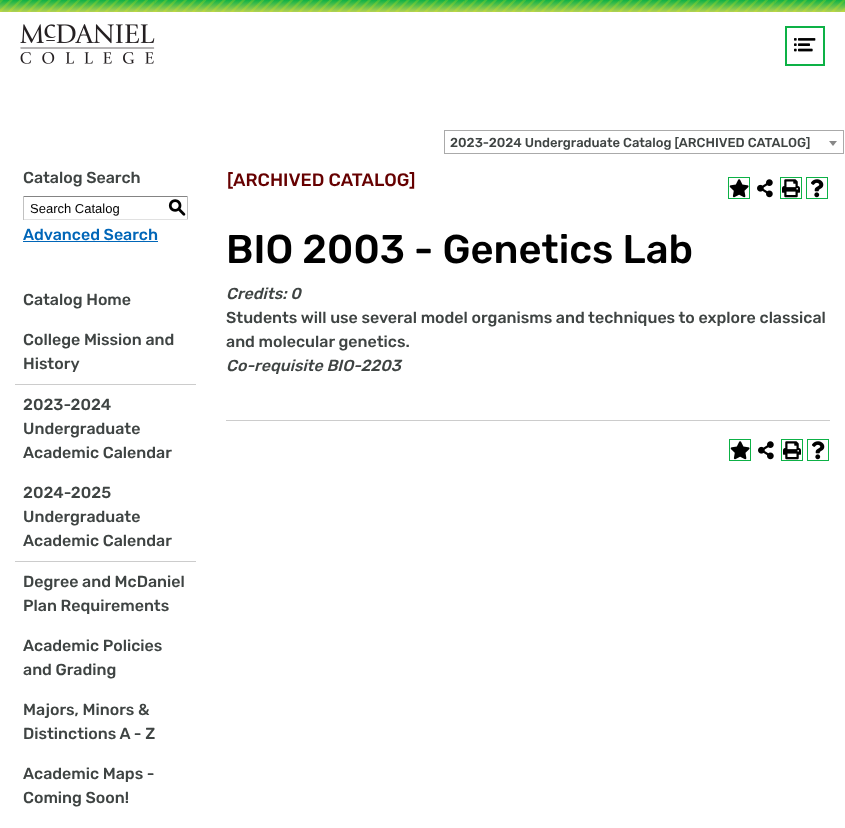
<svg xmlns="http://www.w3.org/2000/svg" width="845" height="828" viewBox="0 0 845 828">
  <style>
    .t1 { font: 500 13px Rubik; fill: #3f4443; }
    .t2 { font: 500 16px Rubik; fill: #3f4443; }
    .t3 { font: 13px Liberation Sans; fill: #000; }
    .t4 { font: 500 18px 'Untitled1'; fill: #000; }
    .t5 { font: 500 16px Rubik; fill: #0066b8; }
    .t6 { font: 500 18px Rubik; fill: #600; }
    .t7 { font: 500 40px Rubik; fill: #000; }
    .t8 { font: italic 500 16px Rubik; fill: #3f4443; }
  </style>
  <rect width="100%" height="100%" fill="#fff"/>
  <image x="0" y="0" width="845" height="12" href="images/1.png"/>
  <image x="20" y="24" width="135" height="40" href="images/2.png"/>
  <rect x="786" y="27" width="38" height="38" fill="none" stroke="#0db146" stroke-width="2"/>
  <image x="794" y="38" width="22" height="14" href="images/3.png"/>
  <rect x="444.5" y="130.5" width="399" height="23" fill="none" stroke="#aaa"/>
  <text x="450" y="147" class="t1">2023-2024 Undergraduate Catalog [ARCHIVED CATALOG]</text>
  <path d="M829 141H837L833 146Z" fill="#888"/>
  <text x="23" y="183" class="t2">Catalog Search</text>
  <rect x="23" y="196" width="165" height="1" fill="#848484"/>
  <rect x="187" y="196" width="1" height="24" fill="#c1c1c1"/>
  <rect x="23" y="219" width="165" height="1" fill="#e1e1e1"/>
  <rect x="23" y="196" width="1" height="24" fill="#c1c1c1"/>
  <text x="30" y="213" class="t3">Search Catalog</text>
  <text x="168" y="213" class="t4">S</text>
  <text x="23" y="240" class="t5">Advanced Search</text>
  <rect x="23" y="241" width="135" height="1" fill="#0066b8"/>
  <text x="23" y="305" class="t2">Catalog Home</text>
  <text x="23" y="345" class="t2">College Mission and</text>
  <text x="23" y="369" class="t2">History</text>
  <rect x="15" y="384" width="181" height="1" fill="#ccc"/>
  <text x="23" y="410" class="t2">2023-2024</text>
  <text x="23" y="434" class="t2">Undergraduate</text>
  <text x="23" y="458" class="t2">Academic Calendar</text>
  <text x="23" y="498" class="t2">2024-2025</text>
  <text x="23" y="522" class="t2">Undergraduate</text>
  <text x="23" y="546" class="t2">Academic Calendar</text>
  <rect x="15" y="561" width="181" height="1" fill="#ccc"/>
  <text x="23" y="587" class="t2">Degree and McDaniel</text>
  <text x="23" y="611" class="t2">Plan Requirements</text>
  <text x="23" y="651" class="t2">Academic Policies</text>
  <text x="23" y="675" class="t2">and Grading</text>
  <text x="23" y="715" class="t2">Majors, Minors &amp;</text>
  <text x="23" y="739" class="t2">Distinctions A - Z</text>
  <text x="23" y="779" class="t2">Academic Maps -</text>
  <text x="23" y="803" class="t2">Coming Soon!</text>
  <text x="227" y="186" class="t6">[ARCHIVED CATALOG]</text>
  <rect x="728.5" y="177.5" width="21" height="21" fill="none" stroke="#0db146"/>
  <image x="729" y="179" width="20" height="19" href="images/4.png"/>
  <image x="757" y="179" width="16" height="19" href="images/5.png"/>
  <rect x="780.5" y="177.5" width="21" height="21" fill="none" stroke="#0db146"/>
  <image x="782" y="179" width="18" height="19" href="images/6.png"/>
  <rect x="806.5" y="177.5" width="21" height="21" fill="none" stroke="#0db146"/>
  <image x="811" y="179" width="13" height="19" href="images/7.png"/>
  <text x="226" y="263" class="t7">BIO 2003 - Genetics Lab</text>
  <text x="226" y="299" class="t8">Credits: 0</text>
  <text x="226" y="323" class="t2">Students will use several model organisms and techniques to explore classical</text>
  <text x="226" y="347" class="t2">and molecular genetics.</text>
  <text x="226" y="371" class="t8">Co-requisite BIO-2203</text>
  <rect x="226" y="420" width="604" height="1" fill="#ccc"/>
  <rect x="729.5" y="439.5" width="21" height="21" fill="none" stroke="#0db146"/>
  <image x="730" y="441" width="20" height="19" href="images/4.png"/>
  <image x="758" y="441" width="16" height="19" href="images/5.png"/>
  <rect x="781.5" y="439.5" width="21" height="21" fill="none" stroke="#0db146"/>
  <image x="783" y="441" width="18" height="19" href="images/6.png"/>
  <rect x="807.5" y="439.5" width="21" height="21" fill="none" stroke="#0db146"/>
  <image x="812" y="441" width="13" height="19" href="images/7.png"/>
</svg>
